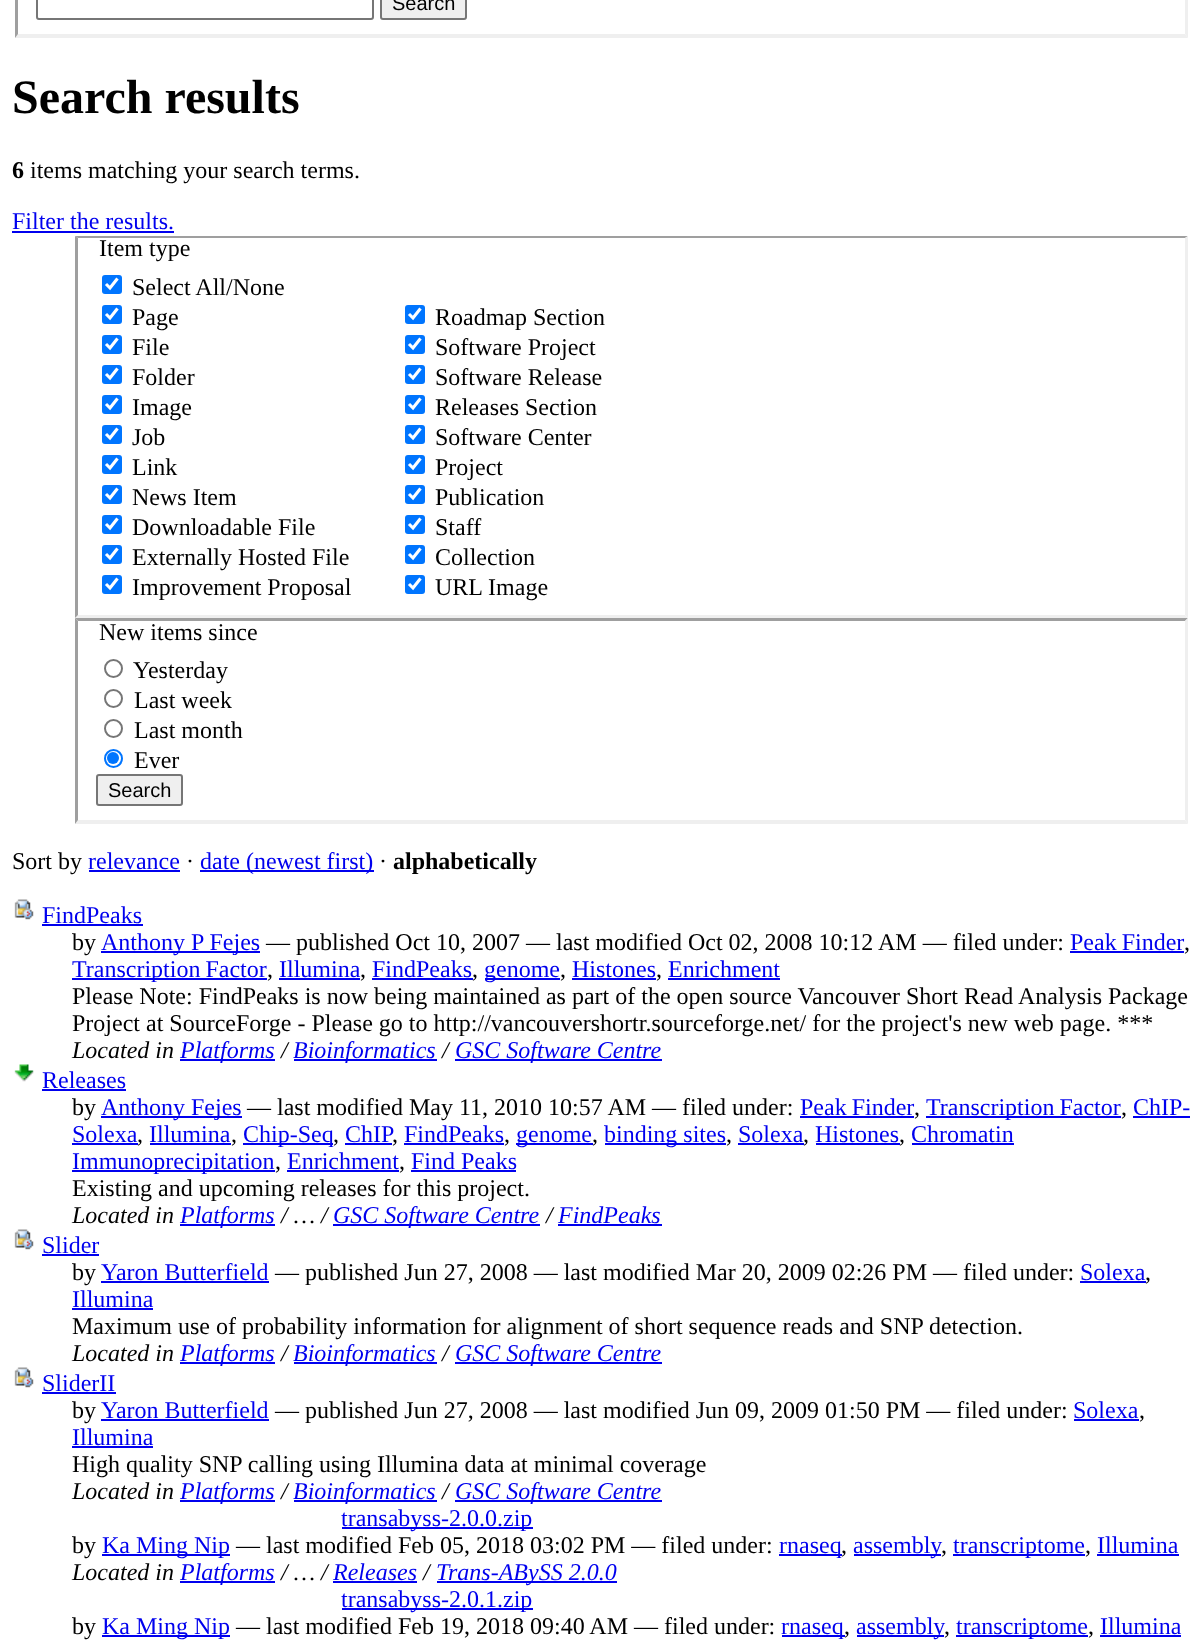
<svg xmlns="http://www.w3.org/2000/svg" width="1203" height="1644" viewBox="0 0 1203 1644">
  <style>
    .t1 { font: 20px Liberation Sans; fill: #000; }
    .t2 { font: bold 48px Liberation Serif; fill: #000; }
    .t3 { font: bold 24px Liberation Serif; fill: #000; }
    .t4 { font: 24px Liberation Serif; fill: #000; }
    .t5 { font: 24px Liberation Serif; fill: #00e; }
    .t6 { font: italic 24px Liberation Serif; fill: #000; }
    .t7 { font: italic 24px Liberation Serif; fill: #00e; }
  </style>
  <rect width="100%" height="100%" fill="#fff"/>
  <path d="M1188-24V38L1185 34V-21Z" fill="#efefef"/>
  <path d="M1188 38H15L18 34H1185Z" fill="#efefef"/>
  <path d="M15 38V-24L18-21V34Z" fill="#9f9f9f"/>
  <rect x="37" y="-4" width="336" height="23" rx="2" fill="none" stroke="#767676" stroke-width="2"/>
  <rect x="381" y="-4" width="85" height="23" rx="2" fill="#efefef" stroke="#767676" stroke-width="2"/>
  <text x="392" y="10" class="t1">Search</text>
  <text x="12" y="113" class="t2">Search results</text>
  <text x="12" y="178" class="t3">6</text>
  <text x="30" y="178" class="t4">items matching your search terms.</text>
  <text x="12" y="229" class="t5">Filter the results.</text>
  <rect x="12" y="231" width="162" height="2" fill="#00e"/>
  <path d="M75 236H1188L1185 238H78Z" fill="#9f9f9f"/>
  <path d="M1188 236V618L1185 615V238Z" fill="#efefef"/>
  <path d="M1188 618H75L78 615H1185Z" fill="#efefef"/>
  <path d="M75 618V236L78 238V615Z" fill="#9f9f9f"/>
  <text x="99" y="256" class="t4">Item type</text>
  <rect x="102" y="275" width="20" height="19" rx="3" fill="#0075ff"/>
  <path d="M106 284L110 288L117.5 278.5" fill="none" stroke="#fff" stroke-width="3.1"/>
  <text x="132" y="295" class="t4">Select All/None</text>
  <rect x="102" y="305" width="20" height="19" rx="3" fill="#0075ff"/>
  <path d="M106 314L110 318L117.5 308.5" fill="none" stroke="#fff" stroke-width="3.1"/>
  <text x="132" y="325" class="t4">Page</text>
  <rect x="102" y="335" width="20" height="19" rx="3" fill="#0075ff"/>
  <path d="M106 344L110 348L117.5 338.5" fill="none" stroke="#fff" stroke-width="3.1"/>
  <text x="132" y="355" class="t4">File</text>
  <rect x="102" y="365" width="20" height="19" rx="3" fill="#0075ff"/>
  <path d="M106 374L110 378L117.5 368.5" fill="none" stroke="#fff" stroke-width="3.1"/>
  <text x="132" y="385" class="t4">Folder</text>
  <rect x="102" y="395" width="20" height="19" rx="3" fill="#0075ff"/>
  <path d="M106 404L110 408L117.5 398.5" fill="none" stroke="#fff" stroke-width="3.1"/>
  <text x="132" y="415" class="t4">Image</text>
  <rect x="102" y="425" width="20" height="19" rx="3" fill="#0075ff"/>
  <path d="M106 434L110 438L117.5 428.5" fill="none" stroke="#fff" stroke-width="3.1"/>
  <text x="132" y="445" class="t4">Job</text>
  <rect x="102" y="455" width="20" height="19" rx="3" fill="#0075ff"/>
  <path d="M106 464L110 468L117.5 458.5" fill="none" stroke="#fff" stroke-width="3.1"/>
  <text x="132" y="475" class="t4">Link</text>
  <rect x="102" y="485" width="20" height="19" rx="3" fill="#0075ff"/>
  <path d="M106 494L110 498L117.5 488.5" fill="none" stroke="#fff" stroke-width="3.1"/>
  <text x="132" y="505" class="t4">News Item</text>
  <rect x="102" y="515" width="20" height="19" rx="3" fill="#0075ff"/>
  <path d="M106 524L110 528L117.5 518.5" fill="none" stroke="#fff" stroke-width="3.1"/>
  <text x="132" y="535" class="t4">Downloadable File</text>
  <rect x="102" y="545" width="20" height="19" rx="3" fill="#0075ff"/>
  <path d="M106 554L110 558L117.5 548.5" fill="none" stroke="#fff" stroke-width="3.1"/>
  <text x="132" y="565" class="t4">Externally Hosted File</text>
  <rect x="102" y="575" width="20" height="19" rx="3" fill="#0075ff"/>
  <path d="M106 584L110 588L117.5 578.5" fill="none" stroke="#fff" stroke-width="3.1"/>
  <text x="132" y="595" class="t4">Improvement Proposal</text>
  <rect x="405" y="305" width="20" height="19" rx="3" fill="#0075ff"/>
  <path d="M409 314L413 318L420.5 308.5" fill="none" stroke="#fff" stroke-width="3.1"/>
  <text x="435" y="325" class="t4">Roadmap Section</text>
  <rect x="405" y="335" width="20" height="19" rx="3" fill="#0075ff"/>
  <path d="M409 344L413 348L420.5 338.5" fill="none" stroke="#fff" stroke-width="3.1"/>
  <text x="435" y="355" class="t4">Software Project</text>
  <rect x="405" y="365" width="20" height="19" rx="3" fill="#0075ff"/>
  <path d="M409 374L413 378L420.5 368.5" fill="none" stroke="#fff" stroke-width="3.1"/>
  <text x="435" y="385" class="t4">Software Release</text>
  <rect x="405" y="395" width="20" height="19" rx="3" fill="#0075ff"/>
  <path d="M409 404L413 408L420.5 398.5" fill="none" stroke="#fff" stroke-width="3.1"/>
  <text x="435" y="415" class="t4">Releases Section</text>
  <rect x="405" y="425" width="20" height="19" rx="3" fill="#0075ff"/>
  <path d="M409 434L413 438L420.5 428.5" fill="none" stroke="#fff" stroke-width="3.1"/>
  <text x="435" y="445" class="t4">Software Center</text>
  <rect x="405" y="455" width="20" height="19" rx="3" fill="#0075ff"/>
  <path d="M409 464L413 468L420.5 458.5" fill="none" stroke="#fff" stroke-width="3.1"/>
  <text x="435" y="475" class="t4">Project</text>
  <rect x="405" y="485" width="20" height="19" rx="3" fill="#0075ff"/>
  <path d="M409 494L413 498L420.5 488.5" fill="none" stroke="#fff" stroke-width="3.1"/>
  <text x="435" y="505" class="t4">Publication</text>
  <rect x="405" y="515" width="20" height="19" rx="3" fill="#0075ff"/>
  <path d="M409 524L413 528L420.5 518.5" fill="none" stroke="#fff" stroke-width="3.1"/>
  <text x="435" y="535" class="t4">Staff</text>
  <rect x="405" y="545" width="20" height="19" rx="3" fill="#0075ff"/>
  <path d="M409 554L413 558L420.5 548.5" fill="none" stroke="#fff" stroke-width="3.1"/>
  <text x="435" y="565" class="t4">Collection</text>
  <rect x="405" y="575" width="20" height="19" rx="3" fill="#0075ff"/>
  <path d="M409 584L413 588L420.5 578.5" fill="none" stroke="#fff" stroke-width="3.1"/>
  <text x="435" y="595" class="t4">URL Image</text>
  <path d="M75 618H1188L1185 621H78Z" fill="#9f9f9f"/>
  <path d="M1188 618V824L1185 820V621Z" fill="#efefef"/>
  <path d="M1188 824H75L78 820H1185Z" fill="#efefef"/>
  <path d="M75 824V618L78 621V820Z" fill="#9f9f9f"/>
  <text x="99" y="640" class="t4">New items since</text>
  <circle cx="113.5" cy="668.5" r="8.5" fill="none" stroke="#767676" stroke-width="2"/>
  <text x="133" y="678" class="t4">Yesterday</text>
  <circle cx="113.5" cy="698.5" r="8.5" fill="none" stroke="#767676" stroke-width="2"/>
  <text x="134" y="708" class="t4">Last week</text>
  <circle cx="113.5" cy="728.5" r="8.5" fill="none" stroke="#767676" stroke-width="2"/>
  <text x="134" y="738" class="t4">Last month</text>
  <circle cx="113.5" cy="758.5" r="8.5" fill="none" stroke="#0075ff" stroke-width="2"/>
  <circle cx="113" cy="758" r="6" fill="#0075ff"/>
  <text x="134" y="768" class="t4">Ever</text>
  <rect x="97" y="775" width="85" height="30" rx="2" fill="#efefef" stroke="#767676" stroke-width="2"/>
  <text x="108" y="797" class="t1">Search</text>
  <text x="12" y="869" class="t4">Sort by</text>
  <text x="88" y="869" class="t5">relevance</text>
  <rect x="89" y="870" width="91" height="2" fill="#00e"/>
  <text x="186" y="869" class="t4">·</text>
  <rect x="200" y="870" width="174" height="2" fill="#00e"/>
  <text x="200" y="869" class="t5">date (newest first)</text>
  <text x="379" y="869" class="t4">·</text>
  <text x="393" y="869" class="t3">alphabetically</text>
  <image x="14" y="899" width="20" height="21" href="images/1.png"/>
  <text x="42" y="923" class="t5">FindPeaks</text>
  <rect x="42" y="924" width="101" height="2" fill="#00e"/>
  <text x="72" y="950" class="t4">by</text>
  <rect x="101" y="951" width="159" height="2" fill="#00e"/>
  <text x="101" y="950" class="t5">Anthony P Fejes</text>
  <text x="266" y="950" class="t4">— published Oct 10, 2007 — last modified Oct 02, 2008 10:12 AM — filed under:</text>
  <text x="1070" y="950" word-spacing="-1" class="t5">Peak Finder</text>
  <text x="1184" y="950" class="t4">,</text>
  <rect x="1070" y="951" width="114" height="2" fill="#00e"/>
  <rect x="72" y="978" width="195" height="2" fill="#00e"/>
  <text x="72" y="977" word-spacing="-1" class="t5">Transcription Factor</text>
  <text x="267" y="977" class="t4">,</text>
  <text x="279" y="977" class="t5">Illumina</text>
  <text x="360" y="977" class="t4">,</text>
  <rect x="279" y="978" width="81" height="2" fill="#00e"/>
  <text x="372" y="977" class="t5">FindPeaks</text>
  <text x="472" y="977" class="t4">,</text>
  <rect x="372" y="978" width="101" height="2" fill="#00e"/>
  <rect x="485" y="978" width="75" height="2" fill="#00e"/>
  <text x="484" y="977" class="t5">genome</text>
  <text x="560" y="977" class="t4">,</text>
  <text x="572" y="977" class="t5">Histones</text>
  <text x="656" y="977" class="t4">,</text>
  <rect x="572" y="978" width="84" height="2" fill="#00e"/>
  <rect x="668" y="978" width="112" height="2" fill="#00e"/>
  <text x="668" y="977" class="t5">Enrichment</text>
  <text x="72" y="1004" class="t4">Please Note: FindPeaks is now being maintained as part of the open source Vancouver Short Read Analysis Package</text>
  <text x="72" y="1031" class="t4">Project at SourceForge - Please go to http://vancouvershortr.sourceforge.net/ for the project's new web page. ***</text>
  <text x="72" y="1058" class="t6">Located in</text>
  <rect x="180" y="1059" width="95" height="2" fill="#00e"/>
  <text x="180" y="1058" class="t7">Platforms</text>
  <text x="281" y="1058" class="t6">/</text>
  <rect x="294" y="1059" width="143" height="2" fill="#00e"/>
  <text x="293" y="1058" class="t7">Bioinformatics</text>
  <text x="442" y="1058" class="t6">/</text>
  <rect x="455" y="1059" width="207" height="2" fill="#00e"/>
  <text x="455" y="1058" class="t7">GSC Software Centre</text>
  <image x="14" y="1064" width="20" height="18" href="images/2.png"/>
  <text x="42" y="1088" class="t5">Releases</text>
  <rect x="42" y="1089" width="84" height="2" fill="#00e"/>
  <text x="72" y="1115" class="t4">by</text>
  <rect x="101" y="1116" width="141" height="2" fill="#00e"/>
  <text x="101" y="1115" class="t5">Anthony Fejes</text>
  <text x="247" y="1115" class="t4">— last modified May 11, 2010 10:57 AM — filed under:</text>
  <text x="800" y="1115" word-spacing="-1" class="t5">Peak Finder</text>
  <text x="914" y="1115" class="t4">,</text>
  <rect x="800" y="1116" width="114" height="2" fill="#00e"/>
  <rect x="926" y="1116" width="195" height="2" fill="#00e"/>
  <text x="926" y="1115" word-spacing="-1" class="t5">Transcription Factor</text>
  <text x="1121" y="1115" class="t4">,</text>
  <rect x="1133" y="1116" width="57" height="2" fill="#00e"/>
  <text x="1133" y="1115" class="t5">ChIP-</text>
  <text x="72" y="1142" class="t5">Solexa</text>
  <text x="137" y="1142" class="t4">,</text>
  <rect x="72" y="1143" width="66" height="2" fill="#00e"/>
  <text x="149" y="1142" class="t5">Illumina</text>
  <text x="231" y="1142" class="t4">,</text>
  <rect x="150" y="1143" width="81" height="2" fill="#00e"/>
  <rect x="243" y="1143" width="90" height="2" fill="#00e"/>
  <text x="243" y="1142" class="t5">Chip-Seq</text>
  <text x="333" y="1142" class="t4">,</text>
  <text x="345" y="1142" class="t5">ChIP</text>
  <text x="392" y="1142" class="t4">,</text>
  <rect x="345" y="1143" width="47" height="2" fill="#00e"/>
  <text x="404" y="1142" class="t5">FindPeaks</text>
  <text x="504" y="1142" class="t4">,</text>
  <rect x="404" y="1143" width="100" height="2" fill="#00e"/>
  <rect x="516" y="1143" width="77" height="2" fill="#00e"/>
  <text x="516" y="1142" class="t5">genome</text>
  <text x="592" y="1142" class="t4">,</text>
  <rect x="605" y="1143" width="121" height="2" fill="#00e"/>
  <text x="604" y="1142" class="t5">binding sites</text>
  <text x="726" y="1142" class="t4">,</text>
  <text x="738" y="1142" class="t5">Solexa</text>
  <text x="803" y="1142" class="t4">,</text>
  <rect x="738" y="1143" width="66" height="2" fill="#00e"/>
  <text x="815" y="1142" class="t5">Histones</text>
  <text x="899" y="1142" class="t4">,</text>
  <rect x="816" y="1143" width="84" height="2" fill="#00e"/>
  <rect x="912" y="1143" width="102" height="2" fill="#00e"/>
  <text x="911" y="1142" class="t5">Chromatin</text>
  <rect x="72" y="1170" width="203" height="2" fill="#00e"/>
  <text x="72" y="1169" class="t5">Immunoprecipitation</text>
  <text x="275" y="1169" class="t4">,</text>
  <text x="287" y="1169" class="t5">Enrichment</text>
  <text x="399" y="1169" class="t4">,</text>
  <rect x="287" y="1170" width="112" height="2" fill="#00e"/>
  <rect x="411" y="1170" width="105" height="2" fill="#00e"/>
  <text x="411" y="1169" class="t5">Find Peaks</text>
  <text x="72" y="1196" class="t4">Existing and upcoming releases for this project.</text>
  <text x="72" y="1223" class="t6">Located in</text>
  <rect x="180" y="1224" width="95" height="2" fill="#00e"/>
  <text x="180" y="1223" class="t7">Platforms</text>
  <text x="281" y="1223" class="t6">/ … /</text>
  <rect x="333" y="1224" width="207" height="2" fill="#00e"/>
  <text x="333" y="1223" class="t7">GSC Software Centre</text>
  <text x="546" y="1223" class="t6">/</text>
  <text x="558" y="1223" class="t7">FindPeaks</text>
  <rect x="558" y="1224" width="104" height="2" fill="#00e"/>
  <image x="14" y="1229" width="20" height="21" href="images/1.png"/>
  <text x="42" y="1253" class="t5">Slider</text>
  <rect x="42" y="1254" width="57" height="2" fill="#00e"/>
  <text x="72" y="1280" class="t4">by</text>
  <rect x="101" y="1281" width="168" height="2" fill="#00e"/>
  <text x="101" y="1280" class="t5">Yaron Butterfield</text>
  <text x="275" y="1280" class="t4">— published Jun 27, 2008 — last modified Mar 20, 2009 02:26 PM — filed under:</text>
  <text x="1080" y="1280" class="t5">Solexa</text>
  <text x="1145" y="1280" class="t4">,</text>
  <rect x="1080" y="1281" width="66" height="2" fill="#00e"/>
  <text x="72" y="1307" class="t5">Illumina</text>
  <rect x="72" y="1308" width="81" height="2" fill="#00e"/>
  <text x="72" y="1334" class="t4">Maximum use of probability information for alignment of short sequence reads and SNP detection.</text>
  <text x="72" y="1361" class="t6">Located in</text>
  <rect x="180" y="1362" width="95" height="2" fill="#00e"/>
  <text x="180" y="1361" class="t7">Platforms</text>
  <text x="281" y="1361" class="t6">/</text>
  <rect x="294" y="1362" width="143" height="2" fill="#00e"/>
  <text x="293" y="1361" class="t7">Bioinformatics</text>
  <text x="442" y="1361" class="t6">/</text>
  <rect x="455" y="1362" width="207" height="2" fill="#00e"/>
  <text x="455" y="1361" class="t7">GSC Software Centre</text>
  <image x="14" y="1367" width="20" height="21" href="images/1.png"/>
  <text x="42" y="1391" class="t5">SliderII</text>
  <rect x="42" y="1392" width="74" height="2" fill="#00e"/>
  <text x="72" y="1418" class="t4">by</text>
  <rect x="101" y="1419" width="168" height="2" fill="#00e"/>
  <text x="101" y="1418" class="t5">Yaron Butterfield</text>
  <text x="275" y="1418" class="t4">— published Jun 27, 2008 — last modified Jun 09, 2009 01:50 PM — filed under:</text>
  <text x="1073" y="1418" class="t5">Solexa</text>
  <text x="1139" y="1418" class="t4">,</text>
  <rect x="1074" y="1419" width="65" height="2" fill="#00e"/>
  <text x="72" y="1445" class="t5">Illumina</text>
  <rect x="72" y="1446" width="81" height="2" fill="#00e"/>
  <text x="72" y="1472" class="t4">High quality SNP calling using Illumina data at minimal coverage</text>
  <text x="72" y="1499" class="t6">Located in</text>
  <rect x="180" y="1500" width="95" height="2" fill="#00e"/>
  <text x="180" y="1499" class="t7">Platforms</text>
  <text x="281" y="1499" class="t6">/</text>
  <rect x="294" y="1500" width="143" height="2" fill="#00e"/>
  <text x="293" y="1499" class="t7">Bioinformatics</text>
  <text x="442" y="1499" class="t6">/</text>
  <rect x="455" y="1500" width="207" height="2" fill="#00e"/>
  <text x="455" y="1499" class="t7">GSC Software Centre</text>
  <rect x="342" y="1527" width="191" height="2" fill="#00e"/>
  <text x="341" y="1526" class="t5">transabyss-2.0.0.zip</text>
  <text x="72" y="1553" class="t4">by</text>
  <rect x="102" y="1554" width="128" height="2" fill="#00e"/>
  <text x="102" y="1553" class="t5">Ka Ming Nip</text>
  <text x="236" y="1553" class="t4">— last modified Feb 05, 2018 03:02 PM — filed under:</text>
  <rect x="779" y="1554" width="63" height="2" fill="#00e"/>
  <text x="779" y="1553" class="t5">rnaseq</text>
  <text x="841" y="1553" class="t4">,</text>
  <rect x="854" y="1554" width="87" height="2" fill="#00e"/>
  <text x="853" y="1553" class="t5">assembly</text>
  <text x="941" y="1553" class="t4">,</text>
  <rect x="953" y="1554" width="132" height="2" fill="#00e"/>
  <text x="953" y="1553" class="t5">transcriptome</text>
  <text x="1085" y="1553" class="t4">,</text>
  <rect x="1097" y="1554" width="82" height="2" fill="#00e"/>
  <text x="1097" y="1553" class="t5">Illumina</text>
  <text x="72" y="1580" class="t6">Located in</text>
  <rect x="180" y="1581" width="95" height="2" fill="#00e"/>
  <text x="180" y="1580" class="t7">Platforms</text>
  <text x="281" y="1580" class="t6">/ … /</text>
  <text x="333" y="1580" class="t7">Releases</text>
  <rect x="333" y="1581" width="84" height="2" fill="#00e"/>
  <text x="423" y="1580" class="t6">/</text>
  <rect x="437" y="1581" width="180" height="2" fill="#00e"/>
  <text x="436" y="1580" class="t7">Trans-ABySS 2.0.0</text>
  <rect x="342" y="1608" width="191" height="2" fill="#00e"/>
  <text x="341" y="1607" class="t5">transabyss-2.0.1.zip</text>
  <text x="72" y="1634" class="t4">by</text>
  <rect x="102" y="1635" width="128" height="2" fill="#00e"/>
  <text x="102" y="1634" class="t5">Ka Ming Nip</text>
  <text x="236" y="1634" class="t4">— last modified Feb 19, 2018 09:40 AM — filed under:</text>
  <rect x="782" y="1635" width="63" height="2" fill="#00e"/>
  <text x="781" y="1634" class="t5">rnaseq</text>
  <text x="844" y="1634" class="t4">,</text>
  <rect x="857" y="1635" width="87" height="2" fill="#00e"/>
  <text x="856" y="1634" class="t5">assembly</text>
  <text x="944" y="1634" class="t4">,</text>
  <rect x="956" y="1635" width="132" height="2" fill="#00e"/>
  <text x="956" y="1634" class="t5">transcriptome</text>
  <text x="1088" y="1634" class="t4">,</text>
  <rect x="1100" y="1635" width="81" height="2" fill="#00e"/>
  <text x="1100" y="1634" class="t5">Illumina</text>
</svg>
